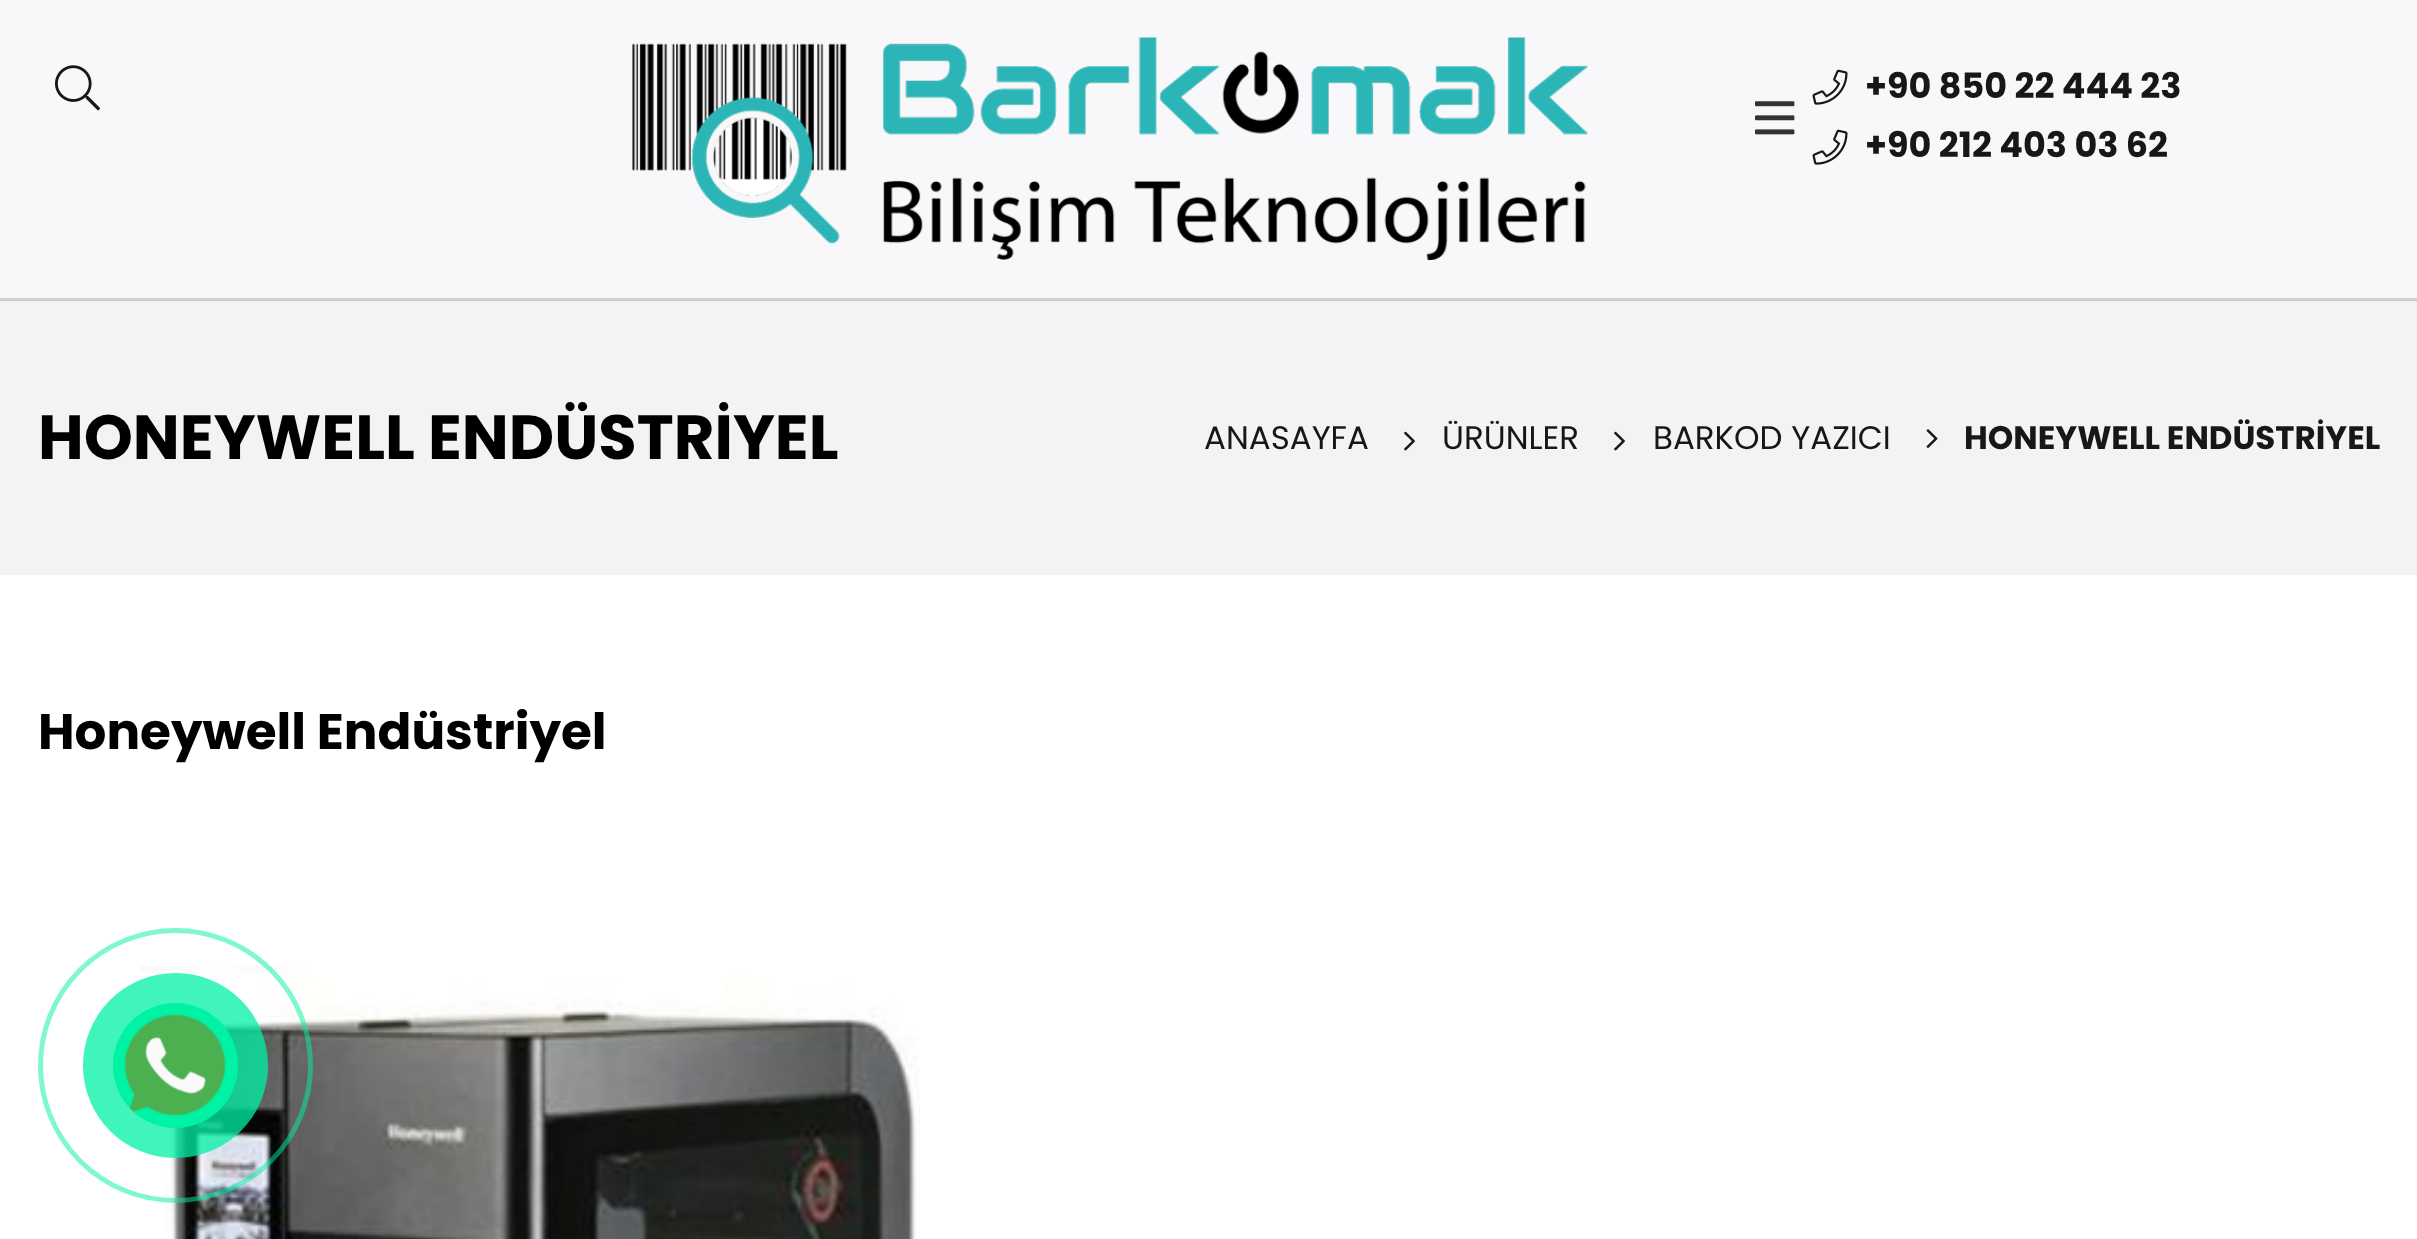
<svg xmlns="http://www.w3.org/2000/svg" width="2417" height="1239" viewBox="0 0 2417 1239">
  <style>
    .t1 { font: bold 35px Poppins; fill: #171717; }
    .t2 { font: bold 62.5px Poppins; fill: #000; }
    .t3 { font: 32.5px Poppins; fill: #171717; }
    .t4 { font: bold 32.5px Poppins; fill: #171717; }
    .t5 { font: bold 50px Poppins; fill: #000; }
  </style>
  <rect width="100%" height="100%" fill="#fff"/>
  <rect x="0" y="298" width="2417" height="2" fill="#d1d1d1"/>
  <rect x="0" y="0" width="2417" height="298" fill="#f8f8fa"/>
  <image x="55" y="65" width="45" height="46" href="images/1.png"/>
  <image x="632" y="37" width="956" height="223" href="images/2.png"/>
  <image x="1755" y="101" width="40" height="34" href="images/3.png"/>
  <image x="1812" y="69" width="36" height="36" href="images/4.png"/>
  <text x="1865" y="98" class="t1">+90 850 22 444 23</text>
  <image x="1812" y="129" width="36" height="36" href="images/4.png"/>
  <text x="1865" y="157" class="t1">+90 212 403 03 62</text>
  <rect x="0" y="301" width="2417" height="274" fill="#f3f3f3"/>
  <rect x="0" y="300" width="2417" height="1" fill="#c7c7c7"/>
  <text x="38" y="459" class="t2">HONEYWELL ENDÜSTRİYEL</text>
  <text x="1204" y="449" class="t3">ANASAYFA</text>
  <image x="1404" y="431" width="11" height="20" href="images/5.png"/>
  <text x="1442" y="449" class="t3">ÜRÜNLER</text>
  <image x="1614" y="431" width="11" height="20" href="images/5.png"/>
  <text x="1653" y="449" class="t3">BARKOD YAZICI</text>
  <image x="1926" y="429" width="12" height="19" href="images/6.png"/>
  <text x="1964" y="449" class="t4">HONEYWELL ENDÜSTRİYEL</text>
  <text x="38" y="749" class="t5">Honeywell Endüstriyel</text>
  <image x="139" y="966" width="781" height="273" href="images/7.png"/>
  <circle cx="175.5" cy="1065.5" r="135" fill="none" stroke="#00f2a480" stroke-width="5"/>
  <circle cx="175.5" cy="1065.5" r="92.5" fill="#00f2a4bf"/>
  <circle cx="175.5" cy="1065.5" r="62.5" fill="#00f2a4"/>
  <image x="124" y="1014" width="102" height="102" href="images/8.png"/>
</svg>
